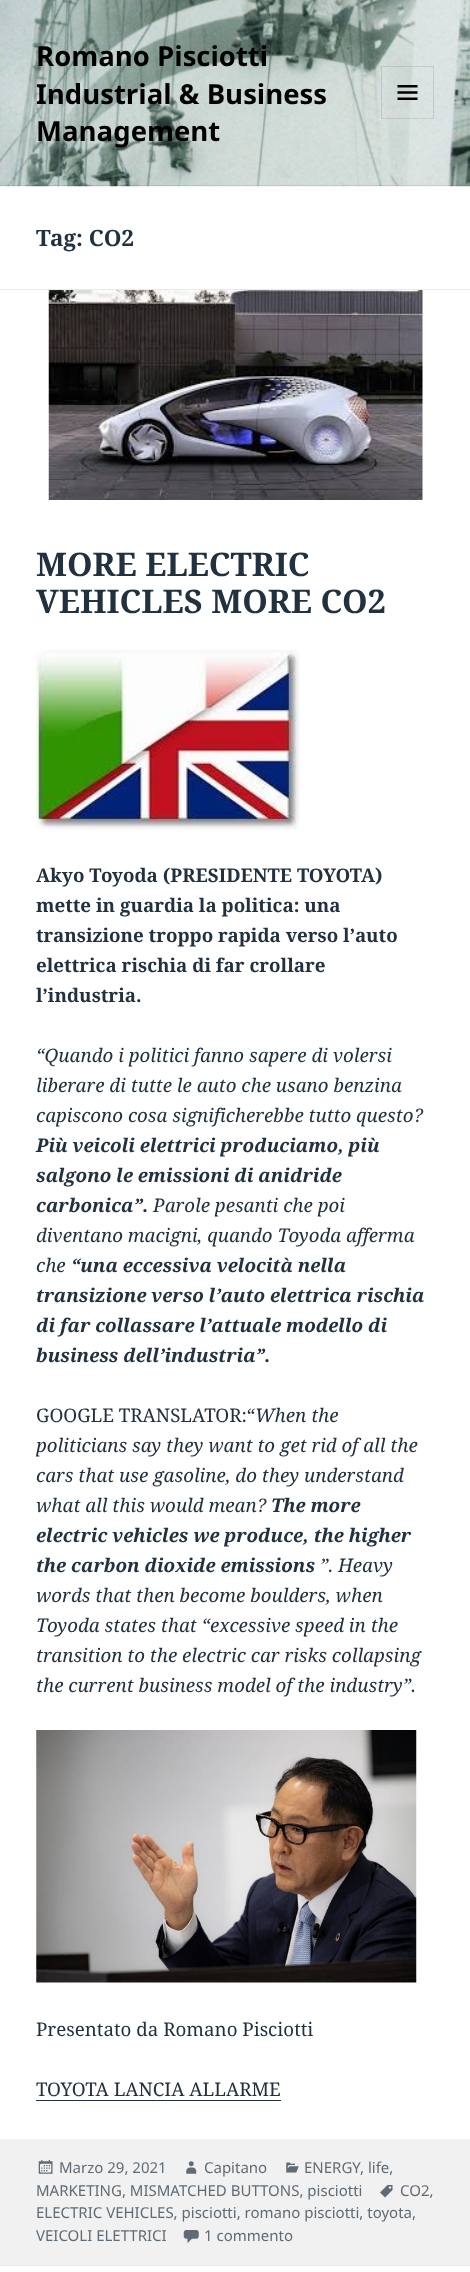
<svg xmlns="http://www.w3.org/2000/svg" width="470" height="2272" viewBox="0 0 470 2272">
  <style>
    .t1 { font: bold 27.5px Noto Sans; fill: #000; }
    .t2 { font: bold 22.5px Noto Serif; fill: #22313f; }
    .t3 { font: bold 32.5px Noto Serif; fill: #22313f; }
    .t4 { font: bold 18.75px Noto Serif; fill: #22313f; }
    .t5 { font: italic 18.75px Noto Serif; fill: #22313f; }
    .t6 { font: italic bold 18.75px Noto Serif; fill: #22313f; }
    .t7 { font: 18.75px Noto Serif; fill: #22313f; }
    .t8 { font: 15px Noto Sans; fill: #606b74; }
  </style>
  <rect width="100%" height="100%" fill="#fff"/>
  <image x="0" y="0" width="470" height="187" href="images/1.png"/>
  <rect x="0" y="185" width="470" height="1" fill="#22313f1a"/>
  <text x="36" y="66" class="t1">Romano Pisciotti</text>
  <text x="36" y="104" class="t1">Industrial &amp; Business</text>
  <text x="36" y="141" class="t1">Management</text>
  <rect x="381.5" y="66.5" width="52" height="52" fill="none" stroke="#0000001a"/>
  <image x="397" y="85" width="21" height="15" href="images/2.png"/>
  <rect x="0" y="289" width="470" height="1" fill="#e9eaec"/>
  <text x="36" y="246" class="t2">Tag: CO2</text>
  <image x="48" y="290" width="375" height="210" href="images/3.png"/>
  <text x="36" y="576" class="t3">MORE ELECTRIC</text>
  <text x="36" y="613" class="t3">VEHICLES MORE CO2</text>
  <image x="36" y="650" width="264" height="180" href="images/4.png"/>
  <text x="36" y="882" class="t4">Akyo Toyoda (PRESIDENTE TOYOTA)</text>
  <text x="36" y="912" class="t4">mette in guardia la politica: una</text>
  <text x="36" y="942" class="t4">transizione troppo rapida verso l’auto</text>
  <text x="36" y="972" class="t4">elettrica rischia di far crollare</text>
  <text x="36" y="1002" class="t4">l’industria.</text>
  <text x="36" y="1062" class="t5">“Quando i politici fanno sapere di volersi</text>
  <text x="36" y="1092" class="t5">liberare di tutte le auto che usano benzina</text>
  <text x="36" y="1122" class="t5">capiscono cosa significherebbe tutto questo?</text>
  <text x="36" y="1152" class="t6">Più veicoli elettrici produciamo, più</text>
  <text x="36" y="1182" class="t6">salgono le emissioni di anidride</text>
  <text x="36" y="1212" class="t6">carbonica”.</text>
  <text x="153" y="1212" class="t5">Parole pesanti che poi</text>
  <text x="36" y="1242" class="t5">diventano macigni, quando Toyoda afferma</text>
  <text x="36" y="1272" class="t5">che</text>
  <text x="71" y="1272" class="t6">“una eccessiva velocità nella</text>
  <text x="36" y="1302" class="t6">transizione verso l’auto elettrica rischia</text>
  <text x="36" y="1332" class="t6">di far collassare l’attuale modello di</text>
  <text x="36" y="1362" class="t6">business dell’industria”.</text>
  <text x="36" y="1422" class="t7">GOOGLE TRANSLATOR:“</text>
  <text x="255" y="1422" class="t5">When the</text>
  <text x="36" y="1452" class="t5">politicians say they want to get rid of all the</text>
  <text x="36" y="1482" class="t5">cars that use gasoline, do they understand</text>
  <text x="36" y="1512" class="t5">what all this would mean?</text>
  <text x="271" y="1512" class="t6">The more</text>
  <text x="36" y="1542" class="t6">electric vehicles we produce, the higher</text>
  <text x="36" y="1572" class="t6">the carbon dioxide emissions</text>
  <text x="320" y="1572" class="t5">”. Heavy</text>
  <text x="36" y="1602" class="t5">words that then become boulders, when</text>
  <text x="36" y="1632" class="t5">Toyoda states that “excessive speed in the</text>
  <text x="36" y="1662" class="t5">transition to the electric car risks collapsing</text>
  <text x="36" y="1692" class="t5">the current business model of the industry”.</text>
  <image x="36" y="1730" width="381" height="253" href="images/5.png"/>
  <text x="36" y="2036" class="t7">Presentato da Romano Pisciotti</text>
  <text x="36" y="2096" class="t7">TOYOTA LANCIA ALLARME</text>
  <rect x="36" y="2100" width="245" height="1" fill="#22313f"/>
  <rect x="0" y="2139" width="470" height="126" fill="#f1f1f1"/>
  <image x="286" y="2162" width="13" height="11" href="images/6.png"/>
  <text x="304" y="2173" class="t8">ENERGY</text>
  <text x="360" y="2173" class="t8">, life,</text>
  <text x="36" y="2196" class="t8">MARKETING, MISMATCHED BUTTONS, pisciotti</text>
  <image x="38" y="2160" width="15" height="14" href="images/7.png"/>
  <text x="59" y="2173" class="t8">Marzo 29, 2021</text>
  <image x="186" y="2161" width="11" height="13" href="images/8.png"/>
  <text x="204" y="2173" class="t8">Capitano</text>
  <image x="380" y="2185" width="13" height="13" href="images/9.png"/>
  <text x="400" y="2196" class="t8">CO2,</text>
  <text x="36" y="2218" class="t8">ELECTRIC VEHICLES, pisciotti, romano pisciotti, toyota,</text>
  <text x="36" y="2241" class="t8">VEICOLI ELETTRICI</text>
  <image x="183" y="2230" width="16" height="13" href="images/10.png"/>
  <text x="204" y="2241" class="t8">1 commento</text>
  <rect x="0" y="2265" width="470" height="1" fill="#e9eaec"/>
</svg>
